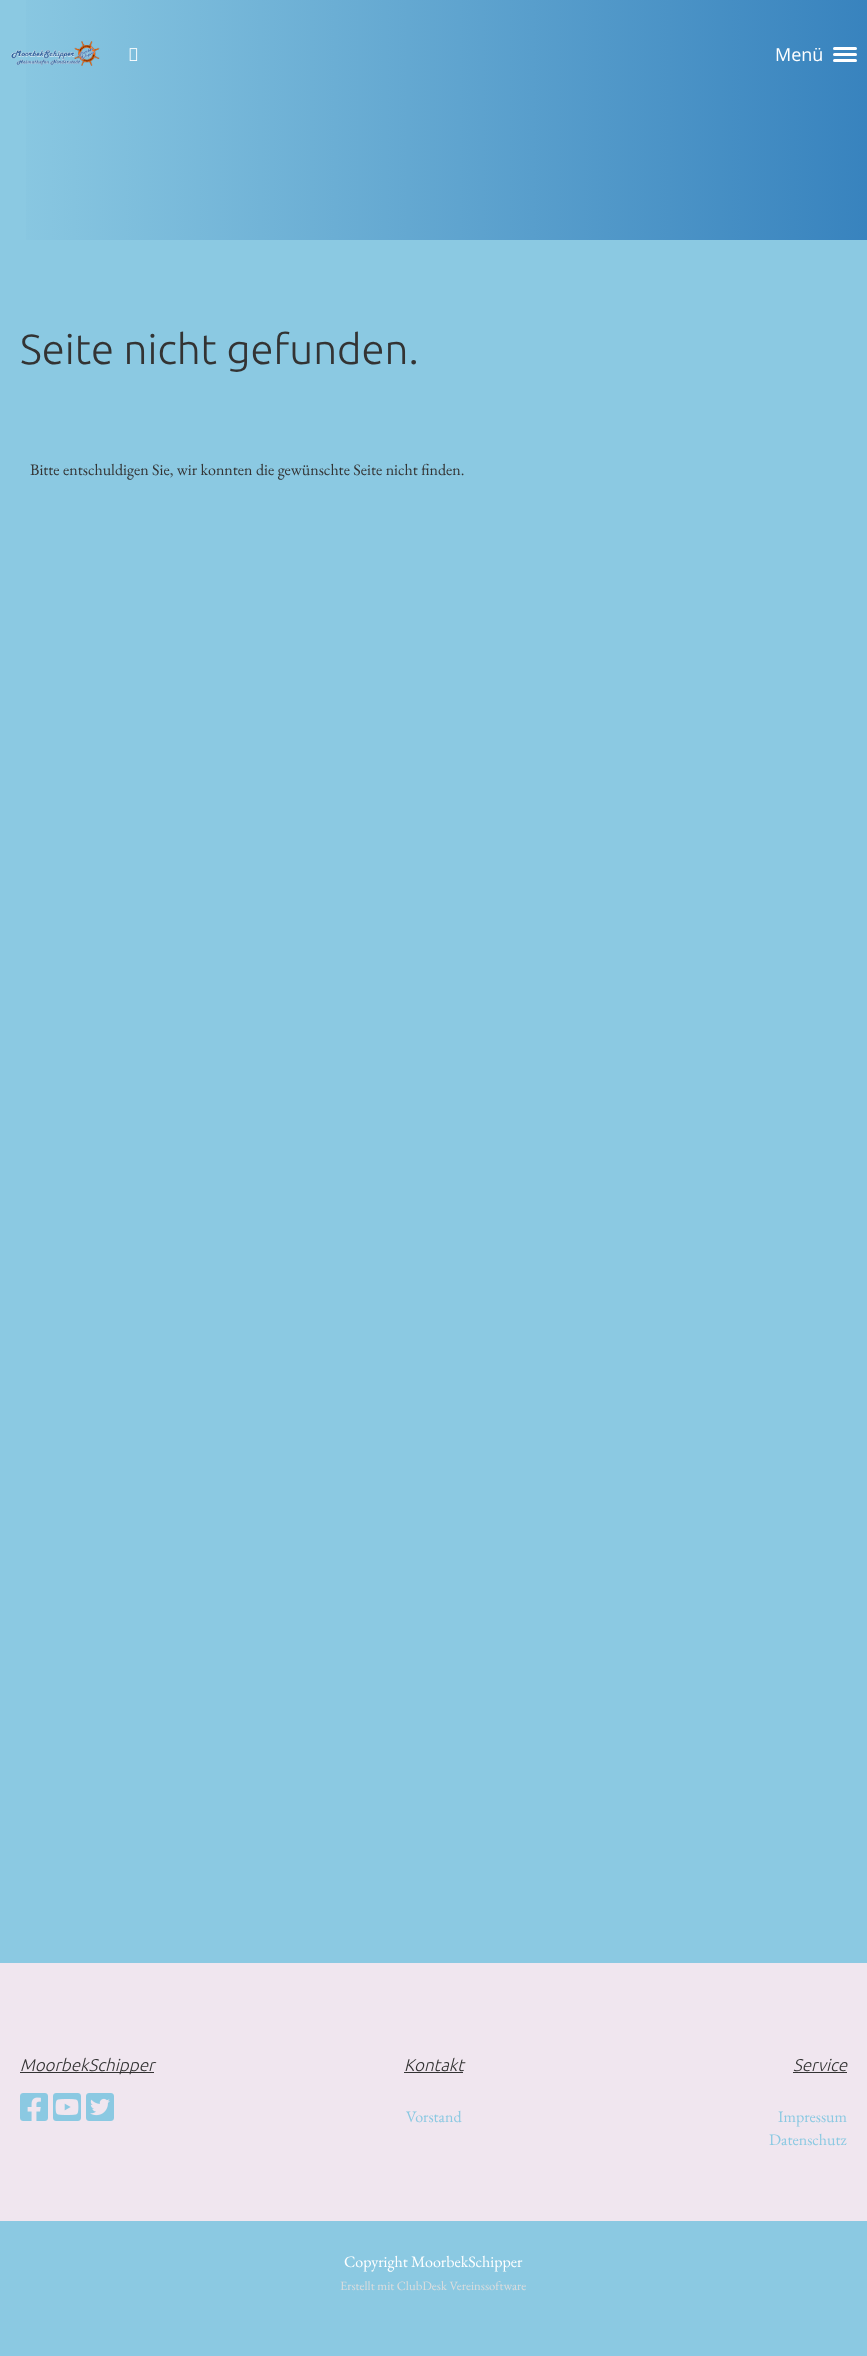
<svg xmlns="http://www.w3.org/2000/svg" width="867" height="2356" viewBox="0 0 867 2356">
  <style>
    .t1 { font: 18px Open Sans; fill: #fff; }
    .t2 { font: 300 42px Ubuntu; fill: #333; }
    .t3 { font: 16px EB Garamond; fill: #333; }
    .t4 { font: italic 300 17px Ubuntu; fill: #333; }
    .t5 { font: 16px EB Garamond; fill: #8bc9e2; }
    .t6 { font: 16px EB Garamond; fill: #fff; }
    .t7 { font: 12.75px EB Garamond; fill: #ddd; }
  </style>
  <defs>
    <linearGradient id="g1" gradientUnits="userSpaceOnUse" x1="0" y1="120" x2="867" y2="120"><stop offset="0" stop-color="#8bc9e2"/><stop offset="1" stop-color="#3883be"/></linearGradient>
  </defs>
  <rect width="100%" height="100%" fill="#8bc9e2"/>
  <rect x="26" y="0" width="841" height="240" fill="url(#g1)"/>
  <image x="10" y="41" width="90" height="25" href="images/1.png"/>
  <image x="129" y="48" width="9" height="13" href="images/2.png"/>
  <text x="775" y="61" class="t1">Menü</text>
  <rect x="833" y="47" width="24" height="3" rx="1.5" fill="#fff"/>
  <rect x="833" y="53" width="24" height="3" rx="1.5" fill="#fff"/>
  <rect x="833" y="59" width="24" height="3" rx="1.5" fill="#fff"/>
  <text x="20" y="364" class="t2">Seite nicht gefunden.</text>
  <text x="30" y="475" word-spacing="0.25" class="t3">Bitte entschuldigen Sie, wir konnten die gewünschte Seite nicht finden.</text>
  <rect x="0" y="1963" width="867" height="258" fill="#f0e6ef"/>
  <rect x="20" y="2072" width="134" height="1" fill="#333"/>
  <text x="20" y="2071" class="t4">MoorbekSchipper</text>
  <image x="20" y="2093" width="28" height="28" href="images/3.png"/>
  <image x="53" y="2093" width="28" height="28" href="images/4.png"/>
  <image x="86" y="2093" width="28" height="28" href="images/5.png"/>
  <text x="404" y="2071" class="t4">Kontakt</text>
  <rect x="404" y="2072" width="59" height="1" fill="#333"/>
  <text x="406" y="2122" class="t5">Vorstand</text>
  <text x="793" y="2071" class="t4">Service</text>
  <rect x="793" y="2072" width="54" height="1" fill="#333"/>
  <text x="778" y="2122" class="t5">Impressum</text>
  <text x="769" y="2145" class="t5">Datenschutz</text>
  <text x="344" y="2267" class="t6">Copyright MoorbekSchipper</text>
  <text x="340" y="2290" class="t7">Erstellt mit ClubDesk Vereinssoftware</text>
</svg>
